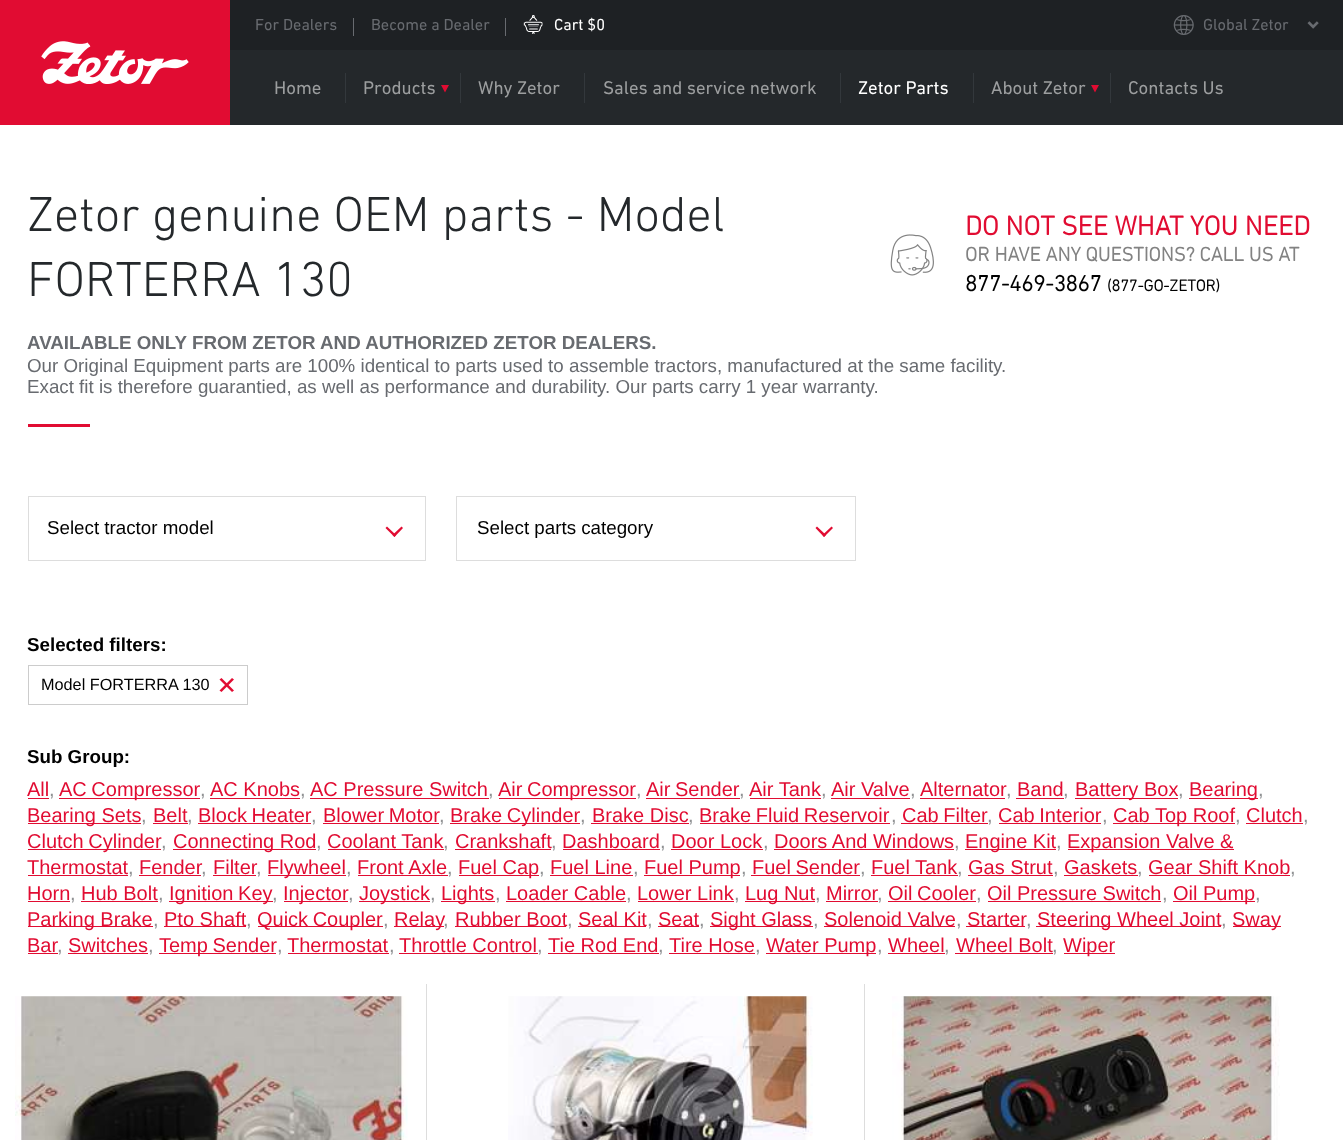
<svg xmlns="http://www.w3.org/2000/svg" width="1343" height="1140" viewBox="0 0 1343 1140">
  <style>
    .t1 { font: 16.25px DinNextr; fill: #686b70; }
    .t2 { font: 16.25px DinNextr; fill: #fff; }
    .t3 { font: 18.75px DinNextr; fill: #9c9e9f; }
    .t4 { font: 18.75px DinNextr; fill: #fff; }
    .t5 { font: 300 50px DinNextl; fill: #24282b; }
    .t6 { font: bold 18.75px Liberation Sans; fill: #686b70; }
    .t7 { font: 18.75px Liberation Sans; fill: #686b70; }
    .t8 { font: bold 27.5px DinNextl; fill: #e10c32; }
    .t9 { font: bold 20px DinNextl; fill: #828282; }
    .t10 { font: bold 22.5px DinNextl; fill: #000; }
    .t11 { font: bold 16.25px DinNextl; fill: #000; }
    .t12 { font: 18.75px Liberation Sans; fill: #000; }
    .t13 { font: bold 18.75px Liberation Sans; fill: #000; }
    .t14 { font: 16.25px Liberation Sans; fill: #000; }
    .t15 { font: 20px Liberation Sans; fill: #e10c32; }
    .t16 { font: 20px Liberation Sans; fill: #8f9193; }
  </style>
  <rect width="100%" height="100%" fill="#fff"/>
  <rect x="230" y="50" width="1113" height="75" fill="#24282b"/>
  <rect x="0" y="0" width="230" height="125" fill="#e10c32"/>
  <image x="41" y="41" width="148" height="43" href="images/1.png"/>
  <rect x="230" y="0" width="1113" height="50" fill="#1e2124"/>
  <text x="255" y="30" class="t1">For Dealers</text>
  <rect x="353" y="18" width="1" height="18" fill="#686b70"/>
  <text x="371" y="30" class="t1">Become a Dealer</text>
  <rect x="505" y="18" width="1" height="18" fill="#686b70"/>
  <image x="523" y="15" width="20" height="19" href="images/2.png"/>
  <text x="554" y="30" class="t2">Cart $0</text>
  <image x="1173" y="15" width="21" height="20" href="images/3.png"/>
  <text x="1203" y="30" class="t1">Global Zetor</text>
  <image x="1307" y="21" width="12" height="8" href="images/4.png"/>
  <text x="274" y="94" class="t3">Home</text>
  <rect x="345" y="73" width="1" height="30" fill="#33383c"/>
  <text x="363" y="94" class="t3">Products</text>
  <path d="M441 85H449L445 92.5Z" fill="#e10c32"/>
  <rect x="460" y="73" width="1" height="30" fill="#33383c"/>
  <text x="478" y="94" class="t3">Why Zetor</text>
  <rect x="584" y="73" width="1" height="30" fill="#33383c"/>
  <text x="603" y="94" class="t3">Sales and service network</text>
  <rect x="840" y="73" width="1" height="30" fill="#33383c"/>
  <text x="858" y="94" class="t4">Zetor Parts</text>
  <rect x="973" y="73" width="1" height="30" fill="#33383c"/>
  <text x="991" y="94" class="t3">About Zetor</text>
  <path d="M1091 85H1099L1095 92.5Z" fill="#e10c32"/>
  <rect x="1110" y="73" width="1" height="30" fill="#33383c"/>
  <text x="1128" y="94" class="t3">Contacts Us</text>
  <text x="27" y="231" class="t5">Zetor genuine OEM parts - Model</text>
  <text x="27" y="296" class="t5">FORTERRA 130</text>
  <text x="27" y="349" class="t6">AVAILABLE ONLY FROM ZETOR AND AUTHORIZED ZETOR DEALERS.</text>
  <text x="27" y="372" class="t7">Our Original Equipment parts are 100% identical to parts used to assemble tractors, manufactured at the same facility.</text>
  <text x="27" y="393" class="t7">Exact fit is therefore guarantied, as well as performance and durability. Our parts carry 1 year warranty.</text>
  <rect x="28" y="424" width="62" height="3" fill="#e10c32"/>
  <text x="965" y="235" class="t8">DO NOT SEE WHAT YOU NEED</text>
  <image x="890" y="234" width="44" height="42" href="images/5.png"/>
  <text x="965" y="261" class="t9">OR HAVE ANY QUESTIONS? CALL US AT</text>
  <text x="965" y="291" class="t10">877-469-3867</text>
  <text x="1107" y="291" class="t11">(877-GO-ZETOR)</text>
  <rect x="28.5" y="496.5" width="397" height="64" fill="none" stroke="#ddd"/>
  <text x="47" y="534" class="t12">Select tractor model</text>
  <path d="M403 528L394.5 537L392.5 535L401.5 526.5Z" fill="#e10c32"/>
  <path d="M396 535L394.5 537L385.5 528L387 526.5Z" fill="#e10c32"/>
  <rect x="456.5" y="496.5" width="399" height="64" fill="none" stroke="#ddd"/>
  <text x="477" y="534" class="t12">Select parts category</text>
  <path d="M833 528L824 537L822.5 535L831.5 526.5Z" fill="#e10c32"/>
  <path d="M826 535L824 537L815.5 528L817 526.5Z" fill="#e10c32"/>
  <text x="27" y="651" class="t13">Selected filters:</text>
  <rect x="28.5" y="665.5" width="219" height="39" fill="none" stroke="#ccc"/>
  <text x="41" y="690" class="t14">Model FORTERRA 130</text>
  <path d="M221.5 678L234 690.5L232 692L219.5 679.5Z" fill="#e10c32"/>
  <path d="M234 679.5L221.5 692L219.5 690.5L232 678Z" fill="#e10c32"/>
  <text x="27" y="763" class="t13">Sub Group:</text>
  <text x="27" y="796" class="t15">All</text>
  <rect x="28" y="798" width="21" height="1" fill="#e10c32"/>
  <text x="49" y="796" class="t16">,</text>
  <rect x="59" y="798" width="141" height="1" fill="#e10c32"/>
  <text x="59" y="796" word-spacing="-1" class="t15">AC Compressor</text>
  <text x="200" y="796" class="t16">,</text>
  <text x="210" y="796" class="t15">AC Knobs</text>
  <rect x="210" y="798" width="90" height="1" fill="#e10c32"/>
  <text x="300" y="796" class="t16">,</text>
  <text x="310" y="796" class="t15">AC Pressure Switch</text>
  <rect x="310" y="798" width="179" height="1" fill="#e10c32"/>
  <text x="488" y="796" class="t16">,</text>
  <rect x="499" y="798" width="137" height="1" fill="#e10c32"/>
  <text x="498" y="796" word-spacing="-1" class="t15">Air Compressor</text>
  <text x="636" y="796" class="t16">,</text>
  <text x="646" y="796" word-spacing="-1" class="t15">Air Sender</text>
  <rect x="646" y="798" width="94" height="1" fill="#e10c32"/>
  <text x="739" y="796" class="t16">,</text>
  <text x="749" y="796" class="t15">Air Tank</text>
  <rect x="750" y="798" width="71" height="1" fill="#e10c32"/>
  <text x="821" y="796" class="t16">,</text>
  <text x="831" y="796" class="t15">Air Valve</text>
  <rect x="831" y="798" width="79" height="1" fill="#e10c32"/>
  <text x="910" y="796" class="t16">,</text>
  <text x="920" y="796" class="t15">Alternator</text>
  <rect x="920" y="798" width="85" height="1" fill="#e10c32"/>
  <text x="1006" y="796" class="t16">,</text>
  <text x="1017" y="796" class="t15">Band</text>
  <rect x="1016" y="798" width="48" height="1" fill="#e10c32"/>
  <text x="1063" y="796" class="t16">,</text>
  <rect x="1075" y="798" width="103" height="1" fill="#e10c32"/>
  <text x="1075" y="796" class="t15">Battery Box</text>
  <text x="1178" y="796" class="t16">,</text>
  <rect x="1189" y="798" width="69" height="1" fill="#e10c32"/>
  <text x="1189" y="796" class="t15">Bearing</text>
  <text x="1258" y="796" class="t16">,</text>
  <rect x="28" y="823" width="113" height="1" fill="#e10c32"/>
  <text x="27" y="822" class="t15">Bearing Sets</text>
  <text x="141" y="822" class="t16">,</text>
  <text x="153" y="822" class="t15">Belt</text>
  <rect x="153" y="823" width="35" height="1" fill="#e10c32"/>
  <text x="187" y="822" class="t16">,</text>
  <text x="198" y="822" word-spacing="-1" class="t15">Block Heater</text>
  <rect x="198" y="823" width="113" height="1" fill="#e10c32"/>
  <text x="311" y="822" class="t16">,</text>
  <text x="323" y="822" word-spacing="-1" class="t15">Blower Motor</text>
  <rect x="323" y="823" width="116" height="1" fill="#e10c32"/>
  <text x="439" y="822" class="t16">,</text>
  <rect x="450" y="823" width="130" height="1" fill="#e10c32"/>
  <text x="450" y="822" word-spacing="-1" class="t15">Brake Cylinder</text>
  <text x="580" y="822" class="t16">,</text>
  <text x="592" y="822" class="t15">Brake Disc</text>
  <rect x="591" y="823" width="98" height="1" fill="#e10c32"/>
  <text x="688" y="822" class="t16">,</text>
  <text x="699" y="822" word-spacing="-1" class="t15">Brake Fluid Reservoir</text>
  <rect x="700" y="823" width="190" height="1" fill="#e10c32"/>
  <text x="891" y="822" class="t16">,</text>
  <text x="902" y="822" word-spacing="-1" class="t15">Cab Filter</text>
  <rect x="901" y="823" width="87" height="1" fill="#e10c32"/>
  <text x="987" y="822" class="t16">,</text>
  <text x="998" y="822" word-spacing="-1" class="t15">Cab Interior</text>
  <rect x="999" y="823" width="102" height="1" fill="#e10c32"/>
  <text x="1102" y="822" class="t16">,</text>
  <rect x="1113" y="823" width="122" height="1" fill="#e10c32"/>
  <text x="1113" y="822" class="t15">Cab Top Roof</text>
  <text x="1235" y="822" class="t16">,</text>
  <text x="1246" y="822" class="t15">Clutch</text>
  <rect x="1246" y="823" width="57" height="1" fill="#e10c32"/>
  <text x="1303" y="822" class="t16">,</text>
  <rect x="28" y="849" width="133" height="1" fill="#e10c32"/>
  <text x="27" y="848" word-spacing="-1" class="t15">Clutch Cylinder</text>
  <text x="161" y="848" class="t16">,</text>
  <rect x="173" y="849" width="143" height="1" fill="#e10c32"/>
  <text x="173" y="848" class="t15">Connecting Rod</text>
  <text x="316" y="848" class="t16">,</text>
  <text x="327" y="848" class="t15">Coolant Tank</text>
  <rect x="328" y="849" width="116" height="1" fill="#e10c32"/>
  <text x="443" y="848" class="t16">,</text>
  <text x="455" y="848" class="t15">Crankshaft</text>
  <rect x="455" y="849" width="96" height="1" fill="#e10c32"/>
  <text x="551" y="848" class="t16">,</text>
  <text x="562" y="848" class="t15">Dashboard</text>
  <rect x="563" y="849" width="97" height="1" fill="#e10c32"/>
  <text x="660" y="848" class="t16">,</text>
  <text x="671" y="848" class="t15">Door Lock</text>
  <rect x="671" y="849" width="92" height="1" fill="#e10c32"/>
  <text x="763" y="848" class="t16">,</text>
  <text x="774" y="848" class="t15">Doors And Windows</text>
  <rect x="774" y="849" width="180" height="1" fill="#e10c32"/>
  <text x="954" y="848" class="t16">,</text>
  <rect x="965" y="849" width="91" height="1" fill="#e10c32"/>
  <text x="965" y="848" class="t15">Engine Kit</text>
  <text x="1056" y="848" class="t16">,</text>
  <rect x="1068" y="849" width="166" height="1" fill="#e10c32"/>
  <text x="1067" y="848" class="t15">Expansion Valve &amp;</text>
  <text x="27" y="874" class="t15">Thermostat</text>
  <rect x="28" y="875" width="100" height="1" fill="#e10c32"/>
  <text x="128" y="874" class="t16">,</text>
  <text x="139" y="874" class="t15">Fender</text>
  <rect x="139" y="875" width="62" height="1" fill="#e10c32"/>
  <text x="201" y="874" class="t16">,</text>
  <text x="213" y="874" class="t15">Filter</text>
  <rect x="213" y="875" width="43" height="1" fill="#e10c32"/>
  <text x="256" y="874" class="t16">,</text>
  <rect x="268" y="875" width="78" height="1" fill="#e10c32"/>
  <text x="267" y="874" class="t15">Flywheel</text>
  <text x="346" y="874" class="t16">,</text>
  <text x="357" y="874" class="t15">Front Axle</text>
  <rect x="358" y="875" width="90" height="1" fill="#e10c32"/>
  <text x="447" y="874" class="t16">,</text>
  <rect x="459" y="875" width="80" height="1" fill="#e10c32"/>
  <text x="458" y="874" class="t15">Fuel Cap</text>
  <text x="539" y="874" class="t16">,</text>
  <text x="550" y="874" class="t15">Fuel Line</text>
  <rect x="550" y="875" width="83" height="1" fill="#e10c32"/>
  <text x="633" y="874" class="t16">,</text>
  <rect x="644" y="875" width="96" height="1" fill="#e10c32"/>
  <text x="644" y="874" class="t15">Fuel Pump</text>
  <text x="741" y="874" class="t16">,</text>
  <text x="752" y="874" word-spacing="-1" class="t15">Fuel Sender</text>
  <rect x="751" y="875" width="109" height="1" fill="#e10c32"/>
  <text x="860" y="874" class="t16">,</text>
  <text x="871" y="874" class="t15">Fuel Tank</text>
  <rect x="871" y="875" width="87" height="1" fill="#e10c32"/>
  <text x="957" y="874" class="t16">,</text>
  <text x="968" y="874" class="t15">Gas Strut</text>
  <rect x="968" y="875" width="85" height="1" fill="#e10c32"/>
  <text x="1053" y="874" class="t16">,</text>
  <text x="1064" y="874" class="t15">Gaskets</text>
  <rect x="1064" y="875" width="74" height="1" fill="#e10c32"/>
  <text x="1137" y="874" class="t16">,</text>
  <text x="1148" y="874" class="t15">Gear Shift Knob</text>
  <rect x="1149" y="875" width="141" height="1" fill="#e10c32"/>
  <text x="1290" y="874" class="t16">,</text>
  <text x="27" y="900" class="t15">Horn</text>
  <rect x="28" y="901" width="42" height="1" fill="#e10c32"/>
  <text x="70" y="900" class="t16">,</text>
  <text x="81" y="900" class="t15">Hub Bolt</text>
  <rect x="81" y="901" width="77" height="1" fill="#e10c32"/>
  <text x="158" y="900" class="t16">,</text>
  <rect x="169" y="901" width="104" height="1" fill="#e10c32"/>
  <text x="169" y="900" word-spacing="-1" class="t15">Ignition Key</text>
  <text x="272" y="900" class="t16">,</text>
  <rect x="284" y="901" width="64" height="1" fill="#e10c32"/>
  <text x="283" y="900" class="t15">Injector</text>
  <text x="348" y="900" class="t16">,</text>
  <rect x="359" y="901" width="71" height="1" fill="#e10c32"/>
  <text x="359" y="900" class="t15">Joystick</text>
  <text x="430" y="900" class="t16">,</text>
  <rect x="441" y="901" width="54" height="1" fill="#e10c32"/>
  <text x="441" y="900" class="t15">Lights</text>
  <text x="495" y="900" class="t16">,</text>
  <text x="506" y="900" class="t15">Loader Cable</text>
  <rect x="506" y="901" width="120" height="1" fill="#e10c32"/>
  <text x="626" y="900" class="t16">,</text>
  <text x="637" y="900" class="t15">Lower Link</text>
  <rect x="638" y="901" width="96" height="1" fill="#e10c32"/>
  <text x="734" y="900" class="t16">,</text>
  <rect x="745" y="901" width="70" height="1" fill="#e10c32"/>
  <text x="745" y="900" class="t15">Lug Nut</text>
  <text x="815" y="900" class="t16">,</text>
  <text x="826" y="900" class="t15">Mirror</text>
  <rect x="826" y="901" width="52" height="1" fill="#e10c32"/>
  <text x="877" y="900" class="t16">,</text>
  <text x="888" y="900" word-spacing="-1" class="t15">Oil Cooler</text>
  <rect x="888" y="901" width="88" height="1" fill="#e10c32"/>
  <text x="976" y="900" class="t16">,</text>
  <text x="987" y="900" class="t15">Oil Pressure Switch</text>
  <rect x="988" y="901" width="173" height="1" fill="#e10c32"/>
  <text x="1162" y="900" class="t16">,</text>
  <rect x="1173" y="901" width="82" height="1" fill="#e10c32"/>
  <text x="1173" y="900" class="t15">Oil Pump</text>
  <text x="1255" y="900" class="t16">,</text>
  <rect x="28" y="926" width="125" height="1" fill="#e10c32"/>
  <text x="27" y="926" class="t15">Parking Brake</text>
  <text x="153" y="926" class="t16">,</text>
  <rect x="164" y="926" width="82" height="1" fill="#e10c32"/>
  <text x="164" y="926" class="t15">Pto Shaft</text>
  <text x="246" y="926" class="t16">,</text>
  <rect x="258" y="926" width="125" height="1" fill="#e10c32"/>
  <text x="257" y="926" word-spacing="-1" class="t15">Quick Coupler</text>
  <text x="383" y="926" class="t16">,</text>
  <rect x="394" y="926" width="50" height="1" fill="#e10c32"/>
  <text x="394" y="926" class="t15">Relay</text>
  <text x="443" y="926" class="t16">,</text>
  <rect x="455" y="926" width="111" height="1" fill="#e10c32"/>
  <text x="455" y="926" class="t15">Rubber Boot</text>
  <text x="567" y="926" class="t16">,</text>
  <rect x="578" y="926" width="68" height="1" fill="#e10c32"/>
  <text x="578" y="926" class="t15">Seal Kit</text>
  <text x="647" y="926" class="t16">,</text>
  <rect x="658" y="926" width="41" height="1" fill="#e10c32"/>
  <text x="658" y="926" class="t15">Seat</text>
  <text x="699" y="926" class="t16">,</text>
  <rect x="710" y="926" width="103" height="1" fill="#e10c32"/>
  <text x="710" y="926" class="t15">Sight Glass</text>
  <text x="813" y="926" class="t16">,</text>
  <rect x="824" y="926" width="131" height="1" fill="#e10c32"/>
  <text x="824" y="926" class="t15">Solenoid Valve</text>
  <text x="956" y="926" class="t16">,</text>
  <rect x="966" y="926" width="59" height="1" fill="#e10c32"/>
  <text x="967" y="926" class="t15">Starter</text>
  <text x="1026" y="926" class="t16">,</text>
  <rect x="1036" y="926" width="185" height="1" fill="#e10c32"/>
  <text x="1037" y="926" class="t15">Steering Wheel Joint</text>
  <text x="1221" y="926" class="t16">,</text>
  <rect x="1233" y="926" width="48" height="1" fill="#e10c32"/>
  <text x="1232" y="926" class="t15">Sway</text>
  <text x="27" y="952" class="t15">Bar</text>
  <rect x="28" y="953" width="30" height="1" fill="#e10c32"/>
  <text x="57" y="952" class="t16">,</text>
  <text x="68" y="952" class="t15">Switches</text>
  <rect x="68" y="953" width="80" height="1" fill="#e10c32"/>
  <text x="148" y="952" class="t16">,</text>
  <rect x="159" y="953" width="117" height="1" fill="#e10c32"/>
  <text x="159" y="952" word-spacing="-1" class="t15">Temp Sender</text>
  <text x="277" y="952" class="t16">,</text>
  <text x="287" y="952" class="t15">Thermostat</text>
  <rect x="288" y="953" width="101" height="1" fill="#e10c32"/>
  <text x="389" y="952" class="t16">,</text>
  <text x="399" y="952" class="t15">Throttle Control</text>
  <rect x="399" y="953" width="139" height="1" fill="#e10c32"/>
  <text x="537" y="952" class="t16">,</text>
  <text x="548" y="952" class="t15">Tie Rod End</text>
  <rect x="548" y="953" width="111" height="1" fill="#e10c32"/>
  <text x="658" y="952" class="t16">,</text>
  <text x="669" y="952" class="t15">Tire Hose</text>
  <rect x="669" y="953" width="86" height="1" fill="#e10c32"/>
  <text x="755" y="952" class="t16">,</text>
  <rect x="766" y="953" width="110" height="1" fill="#e10c32"/>
  <text x="766" y="952" class="t15">Water Pump</text>
  <text x="877" y="952" class="t16">,</text>
  <text x="888" y="952" class="t15">Wheel</text>
  <rect x="888" y="953" width="57" height="1" fill="#e10c32"/>
  <text x="944" y="952" class="t16">,</text>
  <text x="956" y="952" class="t15">Wheel Bolt</text>
  <rect x="955" y="953" width="98" height="1" fill="#e10c32"/>
  <text x="1052" y="952" class="t16">,</text>
  <rect x="1064" y="953" width="51" height="1" fill="#e10c32"/>
  <text x="1063" y="952" class="t15">Wiper</text>
  <image x="15" y="996" width="393" height="144" href="images/6.png"/>
  <rect x="426" y="984" width="1" height="156" fill="#ddd"/>
  <image x="508" y="996" width="305" height="144" href="images/7.png"/>
  <rect x="864" y="984" width="1" height="156" fill="#ddd"/>
  <image x="892" y="996" width="388" height="144" href="images/8.png"/>
</svg>
